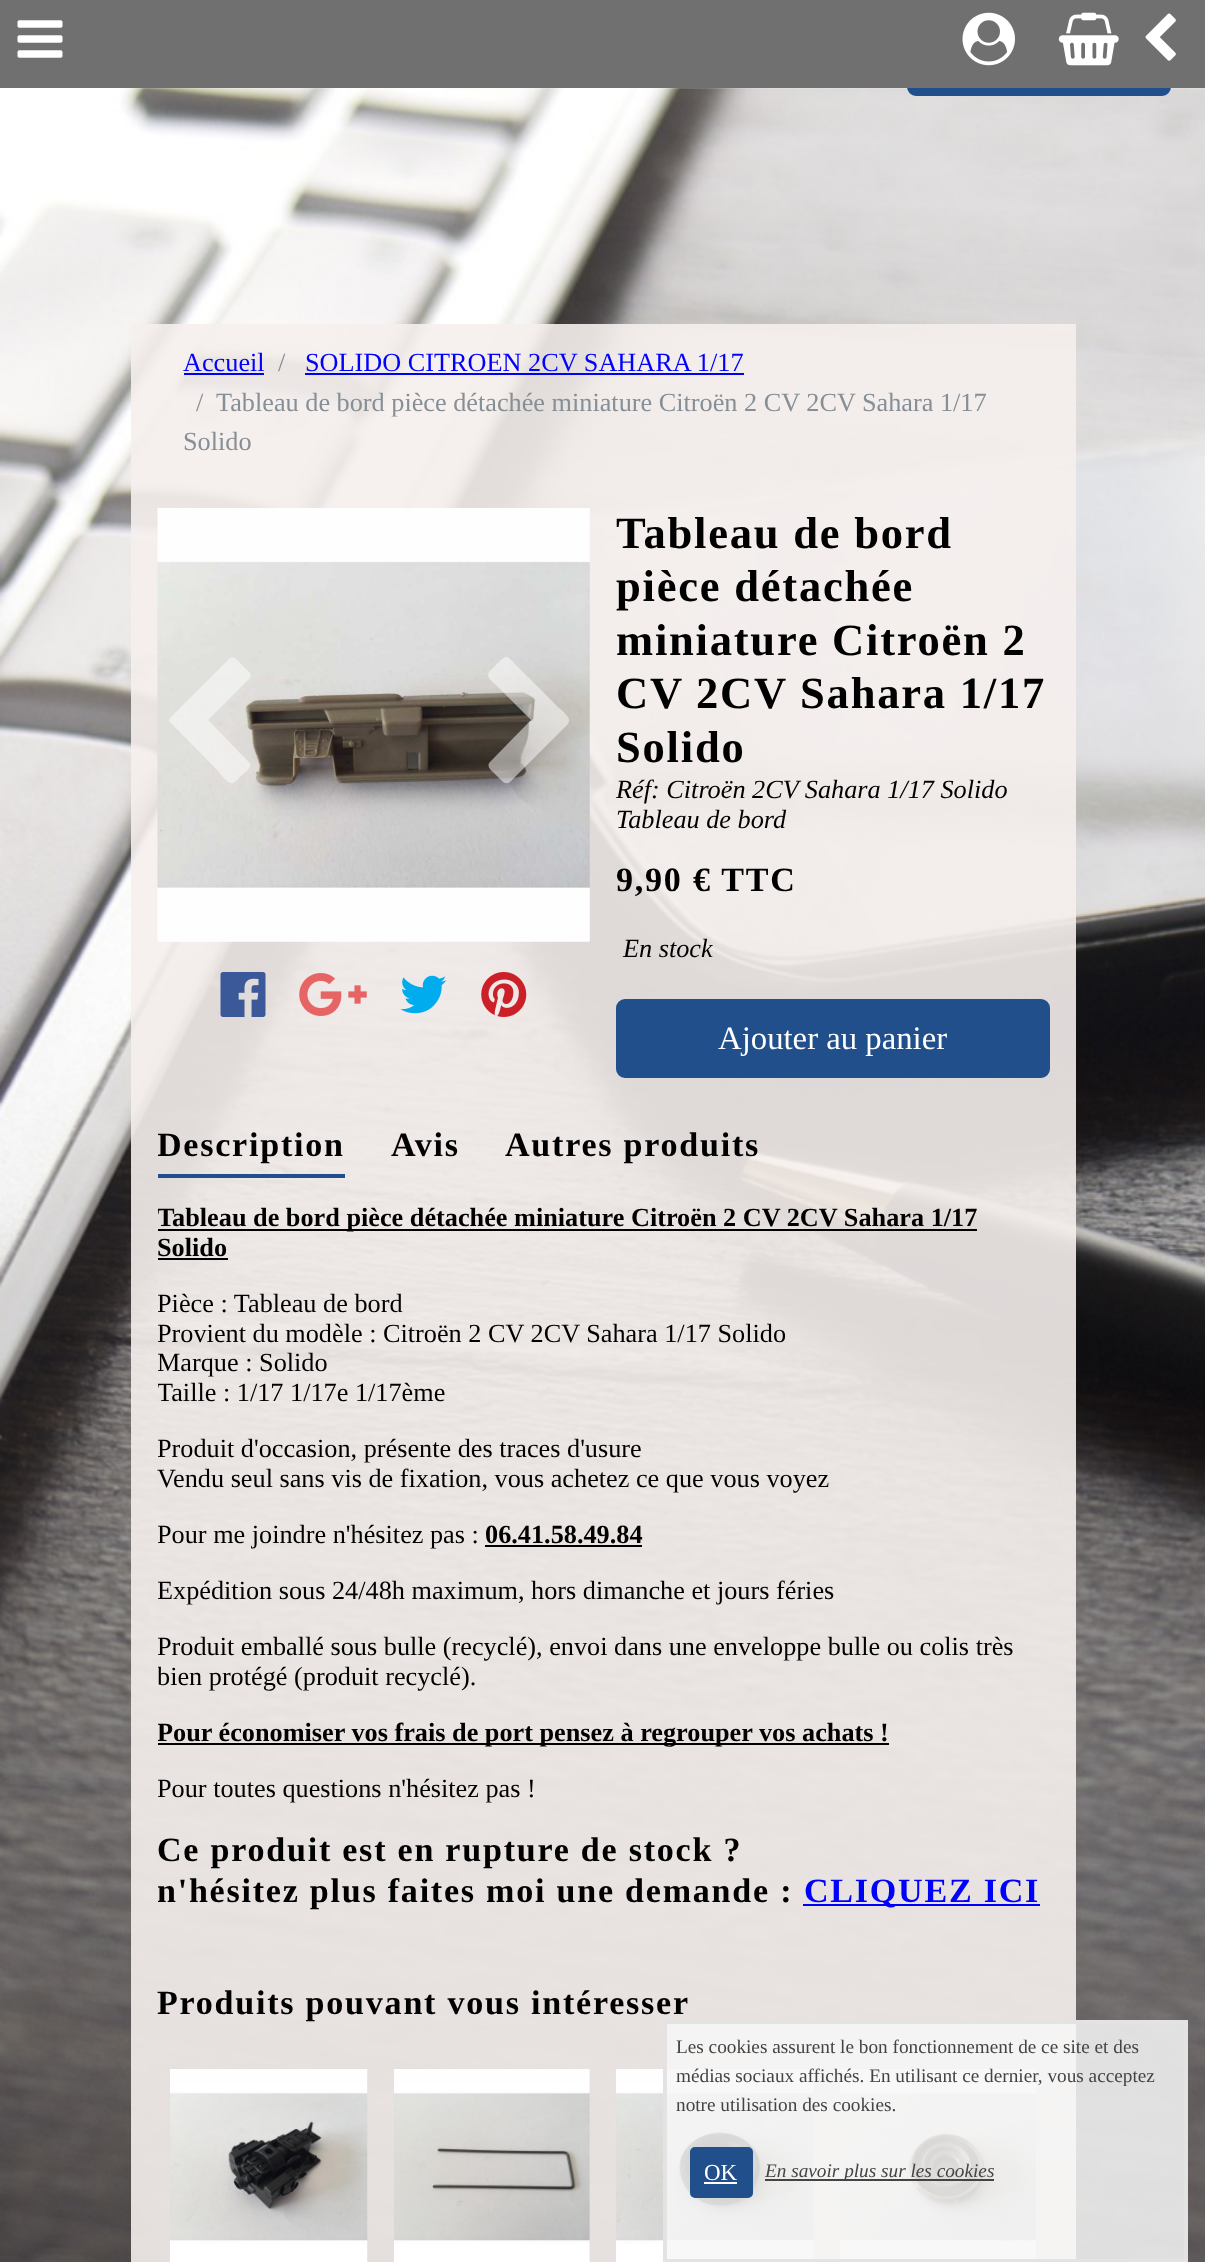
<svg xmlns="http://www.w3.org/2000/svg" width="1205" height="2262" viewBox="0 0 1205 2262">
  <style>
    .t1 { font: 26.25px Liberation Serif; fill: #00f; }
    .t2 { font: 26.25px Liberation Serif; fill: #868e96; }
    .t3 { font: bold 44.6px Liberation Serif; letter-spacing: 1.75px; fill: #000; }
    .t4 { font: italic 26.25px Liberation Serif; fill: #000; }
    .t5 { font: bold 34.1px Liberation Serif; letter-spacing: 1.75px; fill: #000; }
    .t6 { font: 32.75px Liberation Serif; fill: #fff; }
    .t7 { font: bold 26.25px Liberation Serif; fill: #000; }
    .t8 { font: 26.25px Liberation Serif; fill: #000; }
    .t9 { font: bold 34.1px Liberation Serif; letter-spacing: 1.75px; fill: #00f; }
    .t10 { font: 19.25px Liberation Serif; fill: #444; }
    .t11 { font: 23px Liberation Serif; fill: #fff; }
    .t12 { font: italic 19.25px Liberation Serif; fill: #444; }
  </style>
  <defs>
    <clipPath id="clip1"><rect x="158" y="1092" width="892" height="833"/></clipPath>
  </defs>
  <rect width="100%" height="100%" fill="#fff"/>
  <image x="0" y="88" width="1205" height="2174" href="images/1.png"/>
  <rect x="908" y="19" width="262" height="76" rx="8" fill="#204f8c" stroke="#204f8c" stroke-width="2"/>
  <rect x="131" y="324" width="945" height="1938" fill="#f5efede6"/>
  <rect x="0" y="0" width="1205" height="88" fill="#707070"/>
  <image x="17" y="20" width="46" height="38" href="images/2.png"/>
  <image x="962" y="12" width="53" height="54" href="images/3.png"/>
  <image x="1058" y="12" width="61" height="54" href="images/4.png"/>
  <image x="1145" y="13" width="31" height="48" href="images/5.png"/>
  <text x="183" y="371" class="t1">Accueil</text>
  <rect x="184" y="373" width="80" height="2" fill="#00f"/>
  <text x="278" y="371" class="t2">/</text>
  <text x="305" y="371" class="t1">SOLIDO CITROEN 2CV SAHARA 1/17</text>
  <rect x="305" y="373" width="439" height="2" fill="#00f"/>
  <text x="196" y="411" class="t2">/</text>
  <text x="216" y="411" class="t2">Tableau de bord pièce détachée miniature Citroën 2 CV 2CV Sahara 1/17</text>
  <text x="183" y="450" class="t2">Solido</text>
  <image x="157" y="508" width="433" height="434" href="images/6.png"/>
  <path d="M249 679L208 720L242 755C254 767 253 765 240 777L235 782C229 787 221 774 219 772L170 722C169 721 169 719 170 718L229 659C233 655 238 660 240 663L250 673C251 675 251 677 249 679Z" fill="#ffffff80"/>
  <path d="M568 724L510 782C506 785 503 782 501 780L494 773C491 770 486 766 490 762L531 720L497 686C495 684 488 679 488 675C488 671 494 668 496 665C508 653 506 655 519 668L558 707C559 708 570 716 569 721Z" fill="#ffffff80"/>
  <image x="220" y="972" width="46" height="45" href="images/7.png"/>
  <image x="299" y="973" width="68" height="43" href="images/8.png"/>
  <image x="400" y="975" width="47" height="39" href="images/9.png"/>
  <image x="481" y="972" width="46" height="45" href="images/10.png"/>
  <text x="616" y="548" class="t3">Tableau de bord</text>
  <text x="616" y="601" class="t3">pièce détachée</text>
  <text x="616" y="655" class="t3">miniature Citroën 2</text>
  <text x="616" y="708" class="t3">CV 2CV Sahara 1/17</text>
  <text x="616" y="762" class="t3">Solido</text>
  <text x="616" y="798" class="t4">Réf: Citroën 2CV Sahara 1/17 Solido</text>
  <text x="616" y="828" class="t4">Tableau de bord</text>
  <text x="616" y="891" class="t5">9,90 € TTC</text>
  <text x="623" y="957" class="t4">En stock</text>
  <rect x="617" y="1000" width="432" height="77" rx="8" fill="#204f8c" stroke="#204f8c" stroke-width="2"/>
  <text x="718" y="1049" class="t6">Ajouter au panier</text>
  <rect x="158" y="1174" width="187" height="4" fill="#204f8c"/>
  <g clip-path="url(#clip1)">
    <text x="157" y="1156" class="t5">Description</text>
  </g>
  <text x="391" y="1156" class="t5">Avis</text>
  <text x="505" y="1156" class="t5">Autres produits</text>
  <rect x="158" y="1229" width="819" height="2" fill="#000"/>
  <g clip-path="url(#clip1)">
    <text x="157" y="1226" class="t7">Tableau de bord pièce détachée miniature Citroën 2 CV 2CV Sahara 1/17</text>
  </g>
  <text x="157" y="1256" class="t7">Solido</text>
  <rect x="158" y="1258" width="70" height="2" fill="#000"/>
  <g clip-path="url(#clip1)">
    <text x="157" y="1312" class="t8">Pièce : Tableau de bord</text>
    <text x="157" y="1342" class="t8">Provient du modèle : Citroën 2 CV 2CV Sahara 1/17 Solido</text>
    <text x="157" y="1371" class="t8">Marque : Solido</text>
    <text x="157" y="1401" class="t8">Taille : 1/17 1/17e 1/17ème</text>
    <text x="157" y="1457" class="t8">Produit d'occasion, présente des traces d'usure</text>
  </g>
  <text x="157" y="1487" class="t8">Vendu seul sans vis de fixation, vous achetez ce que vous voyez</text>
  <g clip-path="url(#clip1)">
    <text x="157" y="1543" class="t8">Pour me joindre n'hésitez pas :</text>
  </g>
  <text x="485" y="1543" class="t7">06.41.58.49.84</text>
  <rect x="485" y="1545" width="157" height="2" fill="#000"/>
  <g clip-path="url(#clip1)">
    <text x="157" y="1599" class="t8">Expédition sous 24/48h maximum, hors dimanche et jours féries</text>
    <text x="157" y="1655" class="t8">Produit emballé sous bulle (recyclé), envoi dans une enveloppe bulle ou colis très</text>
    <text x="157" y="1685" class="t8">bien protégé (produit recyclé).</text>
  </g>
  <rect x="158" y="1743" width="731" height="2" fill="#000"/>
  <g clip-path="url(#clip1)">
    <text x="157" y="1741" class="t7">Pour économiser vos frais de port pensez à regrouper vos achats !</text>
    <text x="157" y="1797" class="t8">Pour toutes questions n'hésitez pas !</text>
  </g>
  <text x="157" y="1861" class="t5">Ce produit est en rupture de stock ?</text>
  <g clip-path="url(#clip1)">
    <text x="157" y="1902" class="t5">n'hésitez plus faites moi une demande :</text>
  </g>
  <rect x="803" y="1904" width="237" height="2" fill="#00f"/>
  <text x="804" y="1902" class="t9">CLIQUEZ ICI</text>
  <text x="157" y="2014" class="t5">Produits pouvant vous intéresser</text>
  <image x="170" y="2069" width="198" height="193" href="images/11.png"/>
  <image x="394" y="2069" width="196" height="193" href="images/12.png"/>
  <image x="616" y="2069" width="198" height="193" href="images/13.png"/>
  <image x="840" y="2069" width="196" height="190" href="images/14.png"/>
  <rect x="665" y="2022" width="521" height="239" fill="#f7f7f7d9" stroke="#e3e3e3" stroke-width="4"/>
  <text x="676" y="2053" class="t10">Les cookies assurent le bon fonctionnement de ce site et des</text>
  <text x="676" y="2082" class="t10">médias sociaux affichés. En utilisant ce dernier, vous acceptez</text>
  <text x="676" y="2111" class="t10">notre utilisation des cookies.</text>
  <rect x="691" y="2148" width="61" height="49" rx="4" fill="#204f8c" stroke="#204f8c" stroke-width="2"/>
  <text x="704" y="2180" class="t11">OK</text>
  <rect x="704" y="2182" width="33" height="2" fill="#fff"/>
  <rect x="765" y="2179" width="229" height="2" fill="#444"/>
  <text x="765" y="2177" class="t12">En savoir plus sur les cookies</text>
</svg>
